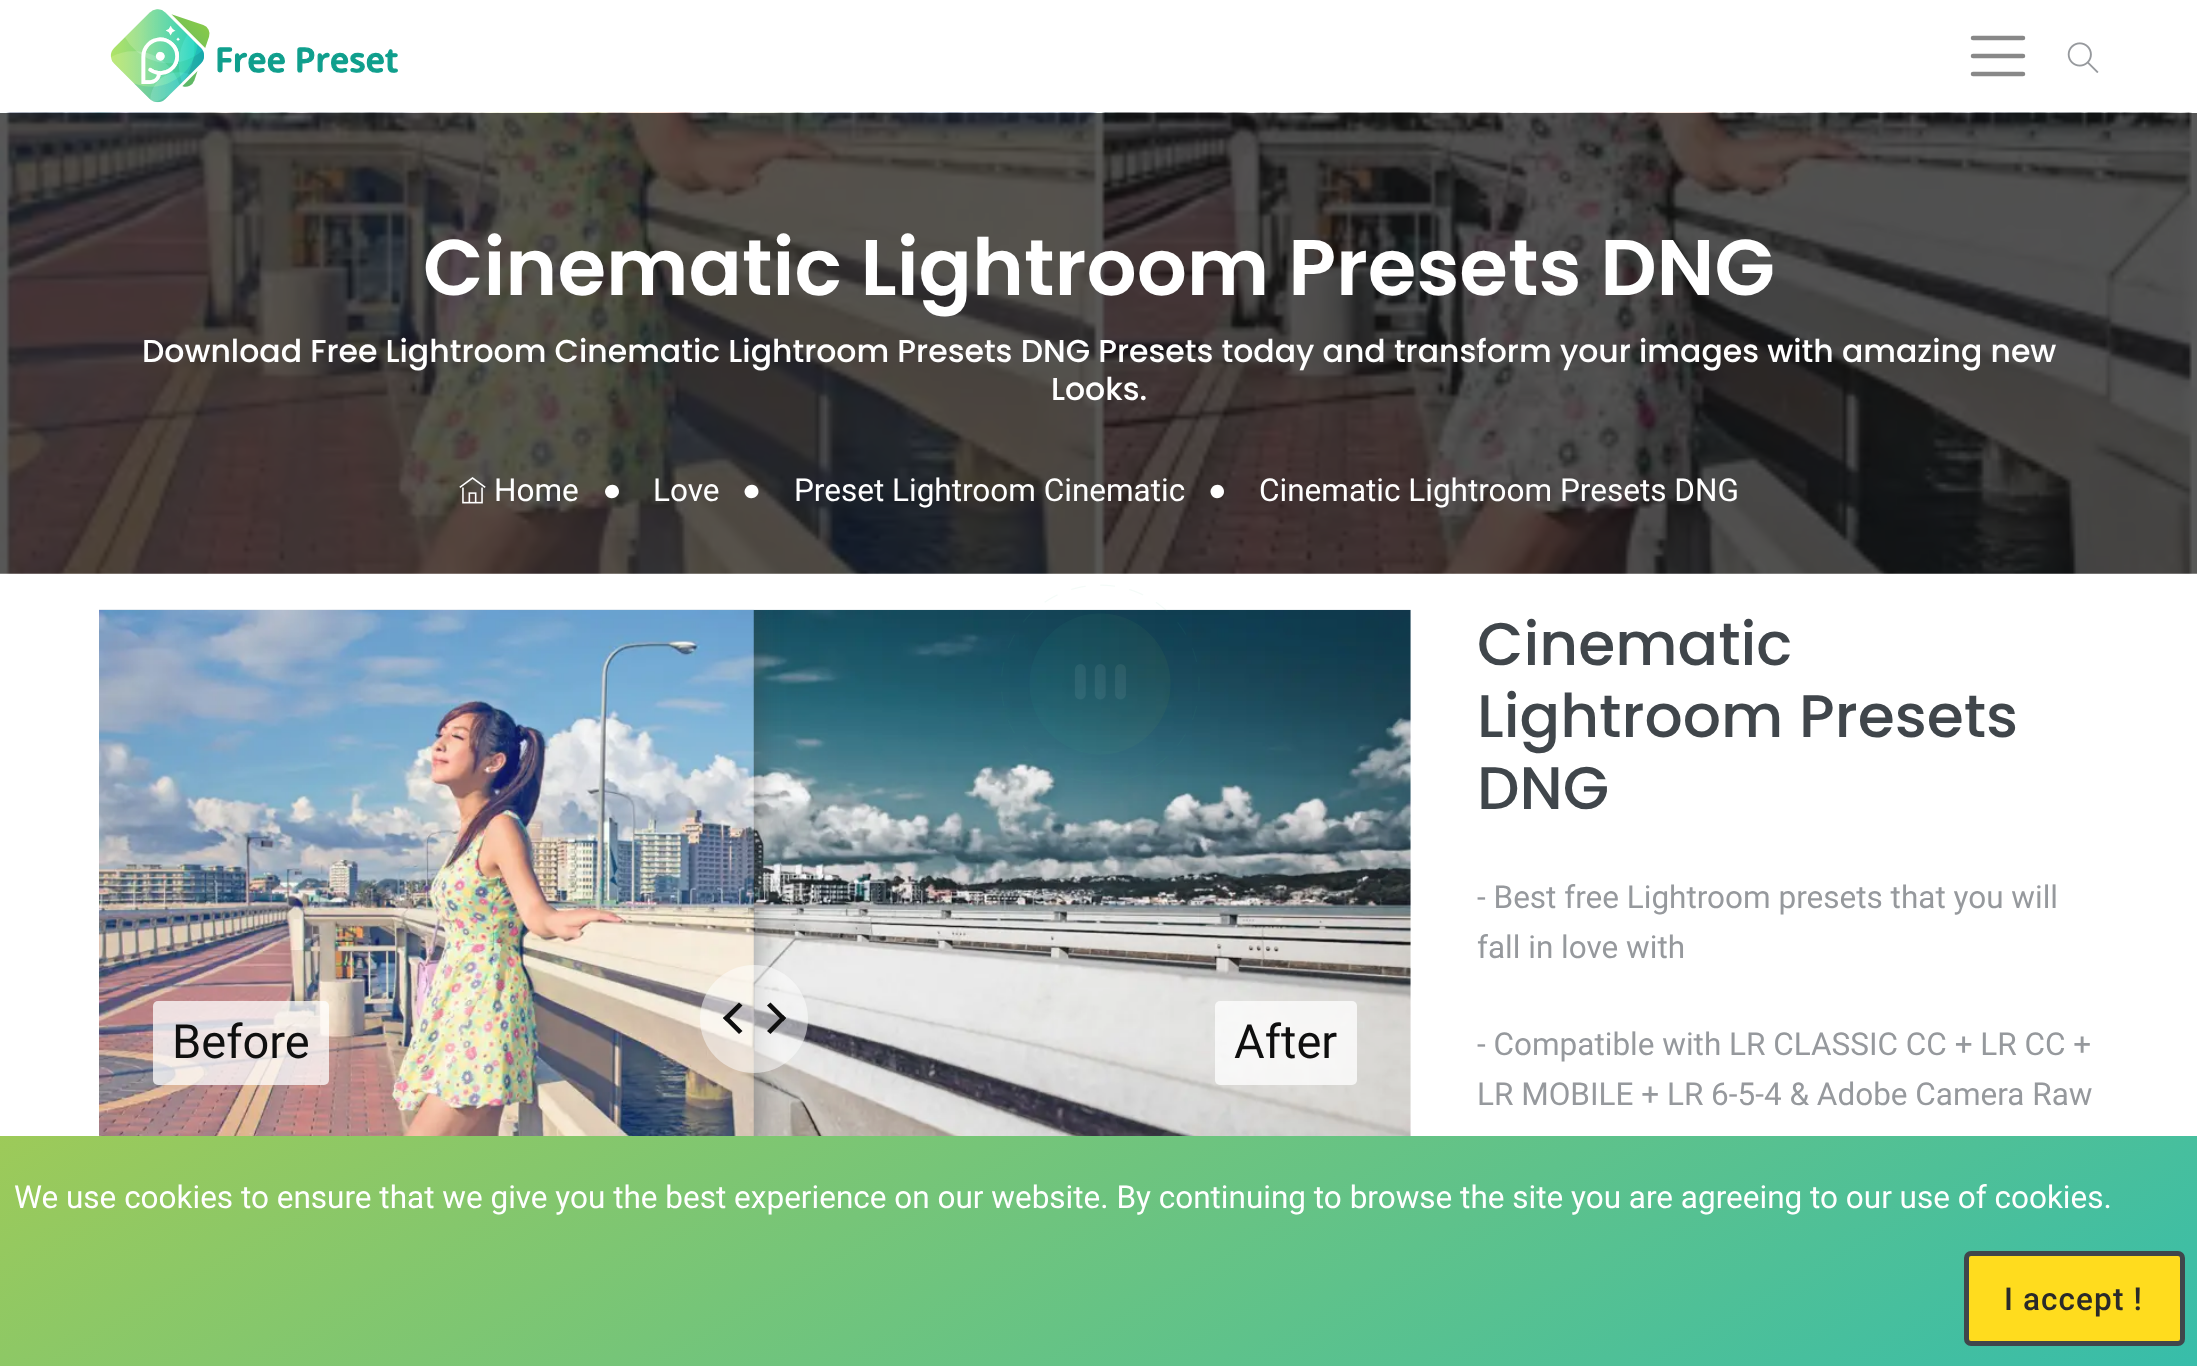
<svg xmlns="http://www.w3.org/2000/svg" width="2197" height="1366" viewBox="0 0 2197 1366">
  <style>
    .t1 { font: 600 78.75px Poppins; fill: #fff; }
    .t2 { font: 500 31.5px Poppins; fill: #fff; }
    .t3 { font: 31.5px Roboto; fill: #fff; }
    .t4 { font: 47px Roboto; fill: #0f0f0f; }
    .t5 { font: 500 60px Poppins; fill: #40464b; }
    .t6 { font: 31.5px Roboto; fill: #96999d; }
    .t7 { font: 500 31.5px Roboto; letter-spacing: 1.1px; fill: #2a2a2a; }
  </style>
  <defs>
    <clipPath id="clip1"><rect x="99" y="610" width="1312" height="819"/></clipPath>
    <linearGradient id="g1" gradientUnits="userSpaceOnUse" x1="774" y1="689" x2="1424" y2="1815"><stop offset="0" stop-color="#9dca59"/><stop offset="1" stop-color="#37bdaa"/></linearGradient>
  </defs>
  <rect width="100%" height="100%" fill="#fff"/>
  <image x="110" y="9" width="288" height="94" href="images/1.png"/>
  <path d="M1973 38H2023M1973 56H2023M1973 74H2023" fill="none" stroke="#888" stroke-width="4.5" stroke-linecap="round"/>
  <image x="2067" y="42" width="32" height="31" href="images/2.png"/>
  <image x="0" y="112" width="2197" height="462" href="images/3.png"/>
  <text x="423" y="295" class="t1">Cinematic Lightroom Presets DNG</text>
  <text x="142" y="362" class="t2">Download Free Lightroom Cinematic Lightroom Presets DNG Presets today and transform your images with amazing new</text>
  <text x="1051" y="400" class="t2">Looks.</text>
  <image x="459" y="477" width="27" height="27" href="images/4.png"/>
  <text x="494" y="501" class="t3">Home</text>
  <path d="M618 488C622.5 496 610.5 502.5 606 495C601.5 487.5 613.5 480.5 618 488Z" fill="#fff"/>
  <text x="653" y="501" class="t3">Love</text>
  <path d="M757.5 488C762 496 750 502.5 745.5 495C741 487.5 753 480.5 757.5 488Z" fill="#fff"/>
  <text x="794" y="501" class="t3">Preset Lightroom Cinematic</text>
  <path d="M1223 488C1227.5 496 1216 502.5 1211.5 495C1207 487.5 1218.5 480.5 1223 488Z" fill="#fff"/>
  <text x="1259" y="501" class="t3">Cinematic Lightroom Presets DNG</text>
  <image x="99" y="609" width="1312" height="527" href="images/6.png"/>
  <image x="1001" y="584" width="199" height="199" href="images/5.png"/>
  <g clip-path="url(#clip1)">
    <rect x="99" y="610" width="655" height="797" fill="#3f3f3f80" filter="blur(13.5px)"/>
  </g>
  <image x="99" y="609" width="655" height="527" href="images/7.png"/>
  <rect x="153" y="1001" width="176" height="84" rx="5" fill="#ffffffbf"/>
  <text x="172" y="1058" class="t4">Before</text>
  <circle cx="754" cy="1019" r="54" fill="#ffffff80"/>
  <path d="M723 1018L739 1002.5L742.5 1005.5L726.5 1021.5Z" fill="#0f0f0f"/>
  <path d="M723 1018L726.5 1015L742.5 1031L739 1034ZM786 1018L770.5 1034L767 1031L783 1015Z" fill="#0f0f0f"/>
  <path d="M786 1018L783 1021.5L767 1005.5L770.5 1002.5Z" fill="#0f0f0f"/>
  <rect x="1215" y="1001" width="142" height="84" rx="5" fill="#ffffffbf"/>
  <text x="1234" y="1058" class="t4">After</text>
  <text x="1477" y="665" class="t5">Cinematic</text>
  <text x="1477" y="737" class="t5">Lightroom Presets</text>
  <text x="1477" y="809" class="t5">DNG</text>
  <text x="1477" y="908" class="t6">- Best free Lightroom presets that you will</text>
  <text x="1477" y="958" class="t6">fall in love with</text>
  <text x="1477" y="1055" class="t6">- Compatible with LR CLASSIC CC + LR CC +</text>
  <text x="1477" y="1105" class="t6">LR MOBILE + LR 6-5-4 &amp; Adobe Camera Raw</text>
  <rect x="0" y="1136" width="2197" height="230" fill="url(#g1)"/>
  <text x="14" y="1208" class="t3">We use cookies to ensure that we give you the best experience on our website. By continuing to browse the site you are agreeing to our use of cookies.</text>
  <rect x="1966.5" y="1253.5" width="216" height="90" rx="4.5" fill="#ffdc1e" stroke="#40464b" stroke-width="5"/>
  <text x="2004" y="1310" class="t7">I accept !</text>
</svg>
